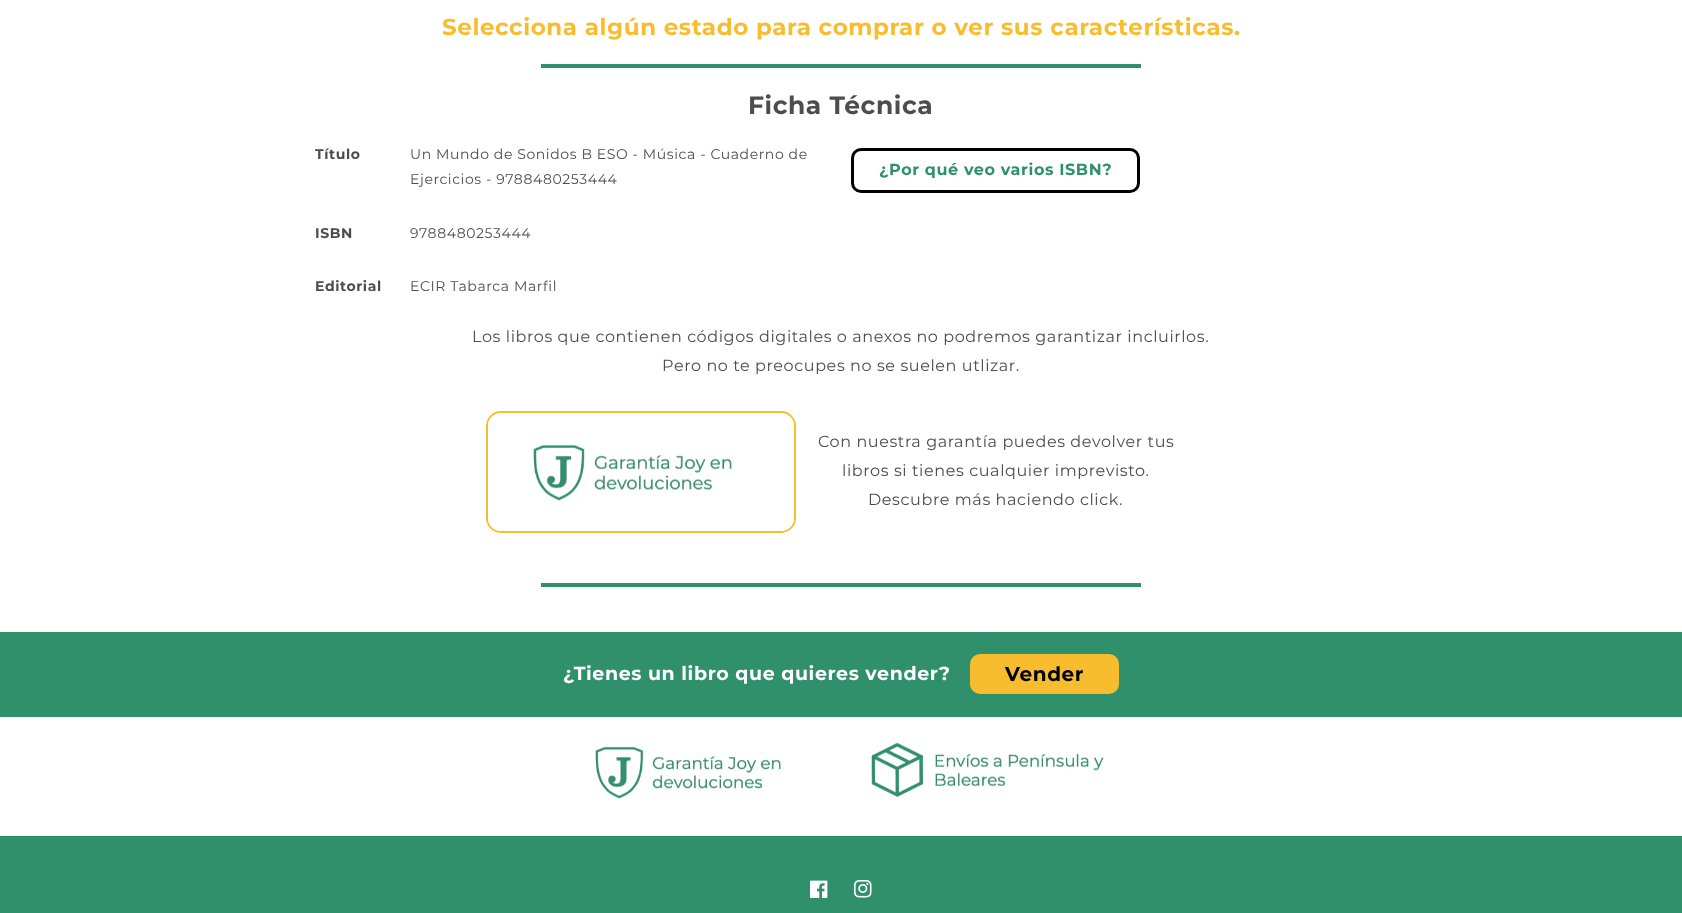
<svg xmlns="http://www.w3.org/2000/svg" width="1682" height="913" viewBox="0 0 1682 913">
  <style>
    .t1 { font: bold 23px Montserrat; letter-spacing: 0.6px; fill: #f8bd2e; }
    .t2 { font: bold 25px Montserrat; letter-spacing: 0.6px; fill: #4d4d4d; }
    .t3 { font: bold 14px Montserrat; letter-spacing: 0.6px; fill: #4d4d4d; }
    .t4 { font: 14px Montserrat; letter-spacing: 0.6px; fill: #4d4d4d; }
    .t5 { font: bold 16px Montserrat; letter-spacing: 0.6px; fill: #31906c; }
    .t6 { font: 16px Montserrat; letter-spacing: 0.6px; fill: #4d4d4d; }
    .t7 { font: bold 19px Montserrat; letter-spacing: 0.6px; fill: #fff; }
    .t8 { font: bold 20px Montserrat; letter-spacing: 0.6px; fill: #000; }
  </style>
  <rect width="100%" height="100%" fill="#fff"/>
  <text x="442" y="35" class="t1">Selecciona algún estado para comprar o ver sus características.</text>
  <rect x="541" y="64" width="600" height="4" fill="#31906c"/>
  <text x="748" y="114" class="t2">Ficha Técnica</text>
  <text x="315" y="159" class="t3">Título</text>
  <text x="410" y="159" class="t4">Un Mundo de Sonidos B ESO - Música - Cuaderno de</text>
  <text x="410" y="184" class="t4">Ejercicios - 9788480253444</text>
  <text x="315" y="238" class="t3">ISBN</text>
  <text x="410" y="238" class="t4">9788480253444</text>
  <text x="315" y="291" class="t3">Editorial</text>
  <text x="410" y="291" class="t4">ECIR Tabarca Marfil</text>
  <rect x="852.5" y="149.5" width="286" height="42" rx="8.5" fill="none" stroke="#000" stroke-width="3"/>
  <text x="879" y="175" class="t5">¿Por qué veo varios ISBN?</text>
  <text x="472" y="342" class="t6">Los libros que contienen códigos digitales o anexos no podremos garantizar incluirlos.</text>
  <text x="662" y="371" class="t6">Pero no te preocupes no se suelen utlizar.</text>
  <rect x="487" y="412" width="308" height="120" rx="14" fill="none" stroke="#f8bd2e" stroke-width="2"/>
  <image x="488" y="413" width="306" height="118" href="images/1.png"/>
  <text x="818" y="447" class="t6">Con nuestra garantía puedes devolver tus</text>
  <text x="842" y="476" class="t6">libros si tienes cualquier imprevisto.</text>
  <text x="868" y="505" class="t6">Descubre más haciendo click.</text>
  <rect x="541" y="583" width="600" height="4" fill="#31906c"/>
  <rect x="0" y="632" width="1682" height="85" fill="#31906c"/>
  <text x="563" y="680" class="t7">¿Tienes un libro que quieres vender?</text>
  <rect x="970" y="654" width="149" height="40" rx="10" fill="#f8bd2e"/>
  <text x="1005" y="681" class="t8">Vender</text>
  <image x="595" y="746" width="186" height="53" href="images/2.png"/>
  <image x="871" y="742" width="234" height="56" href="images/3.png"/>
  <rect x="0" y="837" width="1682" height="76" fill="#31906c"/>
  <rect x="0" y="836" width="1682" height="1" fill="#2f8665"/>
  <image x="810" y="880" width="18" height="18" href="images/4.png"/>
  <image x="854" y="880" width="18" height="18" href="images/5.png"/>
</svg>
